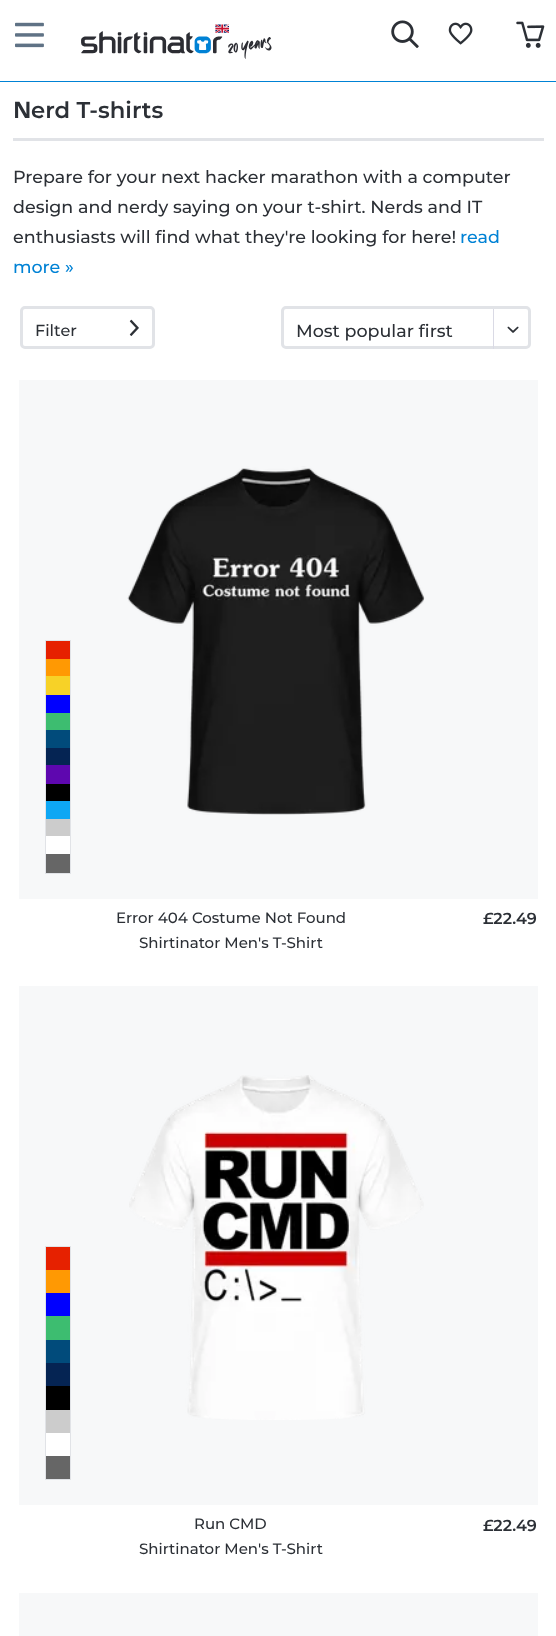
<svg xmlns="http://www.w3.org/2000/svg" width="556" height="1636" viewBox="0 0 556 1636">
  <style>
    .t1 { font: bold 22.75px Noto Sans; fill: #2c3036; }
    .t2 { font: 600 22.75px Montserrat; fill: #2c3036; }
    .t3 { font: 500 17.5px Montserrat; fill: #2c3036; }
    .t4 { font: 500 17.5px Montserrat; fill: #0082d5; }
    .t5 { font: 500 16px Montserrat; fill: #2c3036; }
    .t6 { font: 500 15px Montserrat; fill: #2c3036; }
    .t7 { font: 600 16px Montserrat; fill: #2c3036; }
  </style>
  <rect width="100%" height="100%" fill="#fff"/>
  <rect x="0" y="81" width="556" height="1" fill="#0082d5"/>
  <image x="15" y="22" width="29" height="26" href="images/1.png"/>
  <image x="81" y="24" width="191" height="35" href="images/2.png"/>
  <image x="391" y="20" width="28" height="28" href="images/3.png"/>
  <image x="448" y="22" width="25" height="23" href="images/4.png"/>
  <image x="516" y="21" width="29" height="27" href="images/5.png"/>
  <text x="13" y="118" class="t1">N</text>
  <text x="31" y="118" class="t2">erd T-shirts</text>
  <rect x="13" y="138" width="531" height="3" fill="#e1e3e7"/>
  <text x="13" y="183" class="t3">Prepare for your next hacker marathon with a computer</text>
  <text x="13" y="213" class="t3">design and nerdy saying on your t-shirt. Nerds and IT</text>
  <text x="13" y="243" class="t3">enthusiasts will find what they're looking for here!</text>
  <text x="460" y="243" class="t4">read</text>
  <text x="13" y="273" class="t4">more »</text>
  <rect x="21.5" y="307.5" width="132" height="40" rx="3.5" fill="none" stroke="#e1e3e7" stroke-width="3"/>
  <text x="35" y="336" class="t5">Filter</text>
  <image x="129" y="319" width="10" height="17" href="images/6.png"/>
  <rect x="282.5" y="307.5" width="247" height="40" rx="3.5" fill="none" stroke="#e1e3e7" stroke-width="3"/>
  <text x="296" y="337" class="t3">Most popular first</text>
  <rect x="493" y="309" width="1" height="40" fill="#dadae5"/>
  <image x="507" y="326" width="12" height="7" href="images/7.png"/>
  <rect x="19" y="380" width="519" height="519" fill="#f7f8f9"/>
  <image x="127" y="466" width="298" height="349" href="images/8.png"/>
  <rect x="46" y="641" width="24" height="18" fill="#e62100"/>
  <rect x="45" y="640" width="26" height="1" fill="#e1e3e7"/>
  <rect x="70" y="640" width="1" height="19" fill="#e1e3e7"/>
  <rect x="45" y="640" width="1" height="19" fill="#e1e3e7"/>
  <rect x="46" y="854" width="24" height="19" fill="#666"/>
  <rect x="70" y="659" width="1" height="215" fill="#e1e3e7"/>
  <rect x="45" y="873" width="26" height="1" fill="#e1e3e7"/>
  <rect x="45" y="659" width="1" height="215" fill="#e1e3e7"/>
  <rect x="46" y="659" width="24" height="17" fill="#ff9903"/>
  <rect x="46" y="676" width="24" height="19" fill="#f7d227"/>
  <rect x="46" y="695" width="24" height="18" fill="#00f"/>
  <rect x="46" y="713" width="24" height="17" fill="#3dbd70"/>
  <rect x="46" y="730" width="24" height="18" fill="#014b7b"/>
  <rect x="46" y="748" width="24" height="17" fill="#052453"/>
  <rect x="46" y="765" width="24" height="19" fill="#5e07af"/>
  <rect x="46" y="784" width="24" height="17" fill="#000"/>
  <rect x="46" y="801" width="24" height="18" fill="#0ea7f4"/>
  <rect x="46" y="819" width="24" height="17" fill="#ccc"/>
  <rect x="46" y="836" width="24" height="18" fill="#fff"/>
  <text x="116" y="923" class="t6">Error 404 Costume Not Found</text>
  <text x="139" y="948" class="t6">Shirtinator Men's T-Shirt</text>
  <text x="483" y="924" class="t7">£22.49</text>
  <rect x="19" y="986" width="519" height="519" fill="#f7f8f9"/>
  <image x="129" y="1075" width="295" height="345" href="images/9.png"/>
  <rect x="46" y="1247" width="24" height="23" fill="#e62100"/>
  <rect x="45" y="1246" width="26" height="1" fill="#e1e3e7"/>
  <rect x="70" y="1246" width="1" height="24" fill="#e1e3e7"/>
  <rect x="45" y="1246" width="1" height="24" fill="#e1e3e7"/>
  <rect x="46" y="1456" width="24" height="23" fill="#666"/>
  <rect x="70" y="1270" width="1" height="210" fill="#e1e3e7"/>
  <rect x="45" y="1479" width="26" height="1" fill="#e1e3e7"/>
  <rect x="45" y="1270" width="1" height="210" fill="#e1e3e7"/>
  <rect x="46" y="1270" width="24" height="23" fill="#ff9903"/>
  <rect x="46" y="1293" width="24" height="23" fill="#00f"/>
  <rect x="46" y="1316" width="24" height="24" fill="#3dbd70"/>
  <rect x="46" y="1340" width="24" height="23" fill="#014b7b"/>
  <rect x="46" y="1363" width="24" height="23" fill="#052453"/>
  <rect x="46" y="1386" width="24" height="24" fill="#000"/>
  <rect x="46" y="1410" width="24" height="23" fill="#ccc"/>
  <rect x="46" y="1433" width="24" height="23" fill="#fff"/>
  <text x="194" y="1529" class="t6">Run CMD</text>
  <text x="139" y="1554" class="t6">Shirtinator Men's T-Shirt</text>
  <text x="483" y="1531" class="t7">£22.49</text>
  <rect x="19" y="1593" width="519" height="43" fill="#f7f8f9"/>
</svg>
